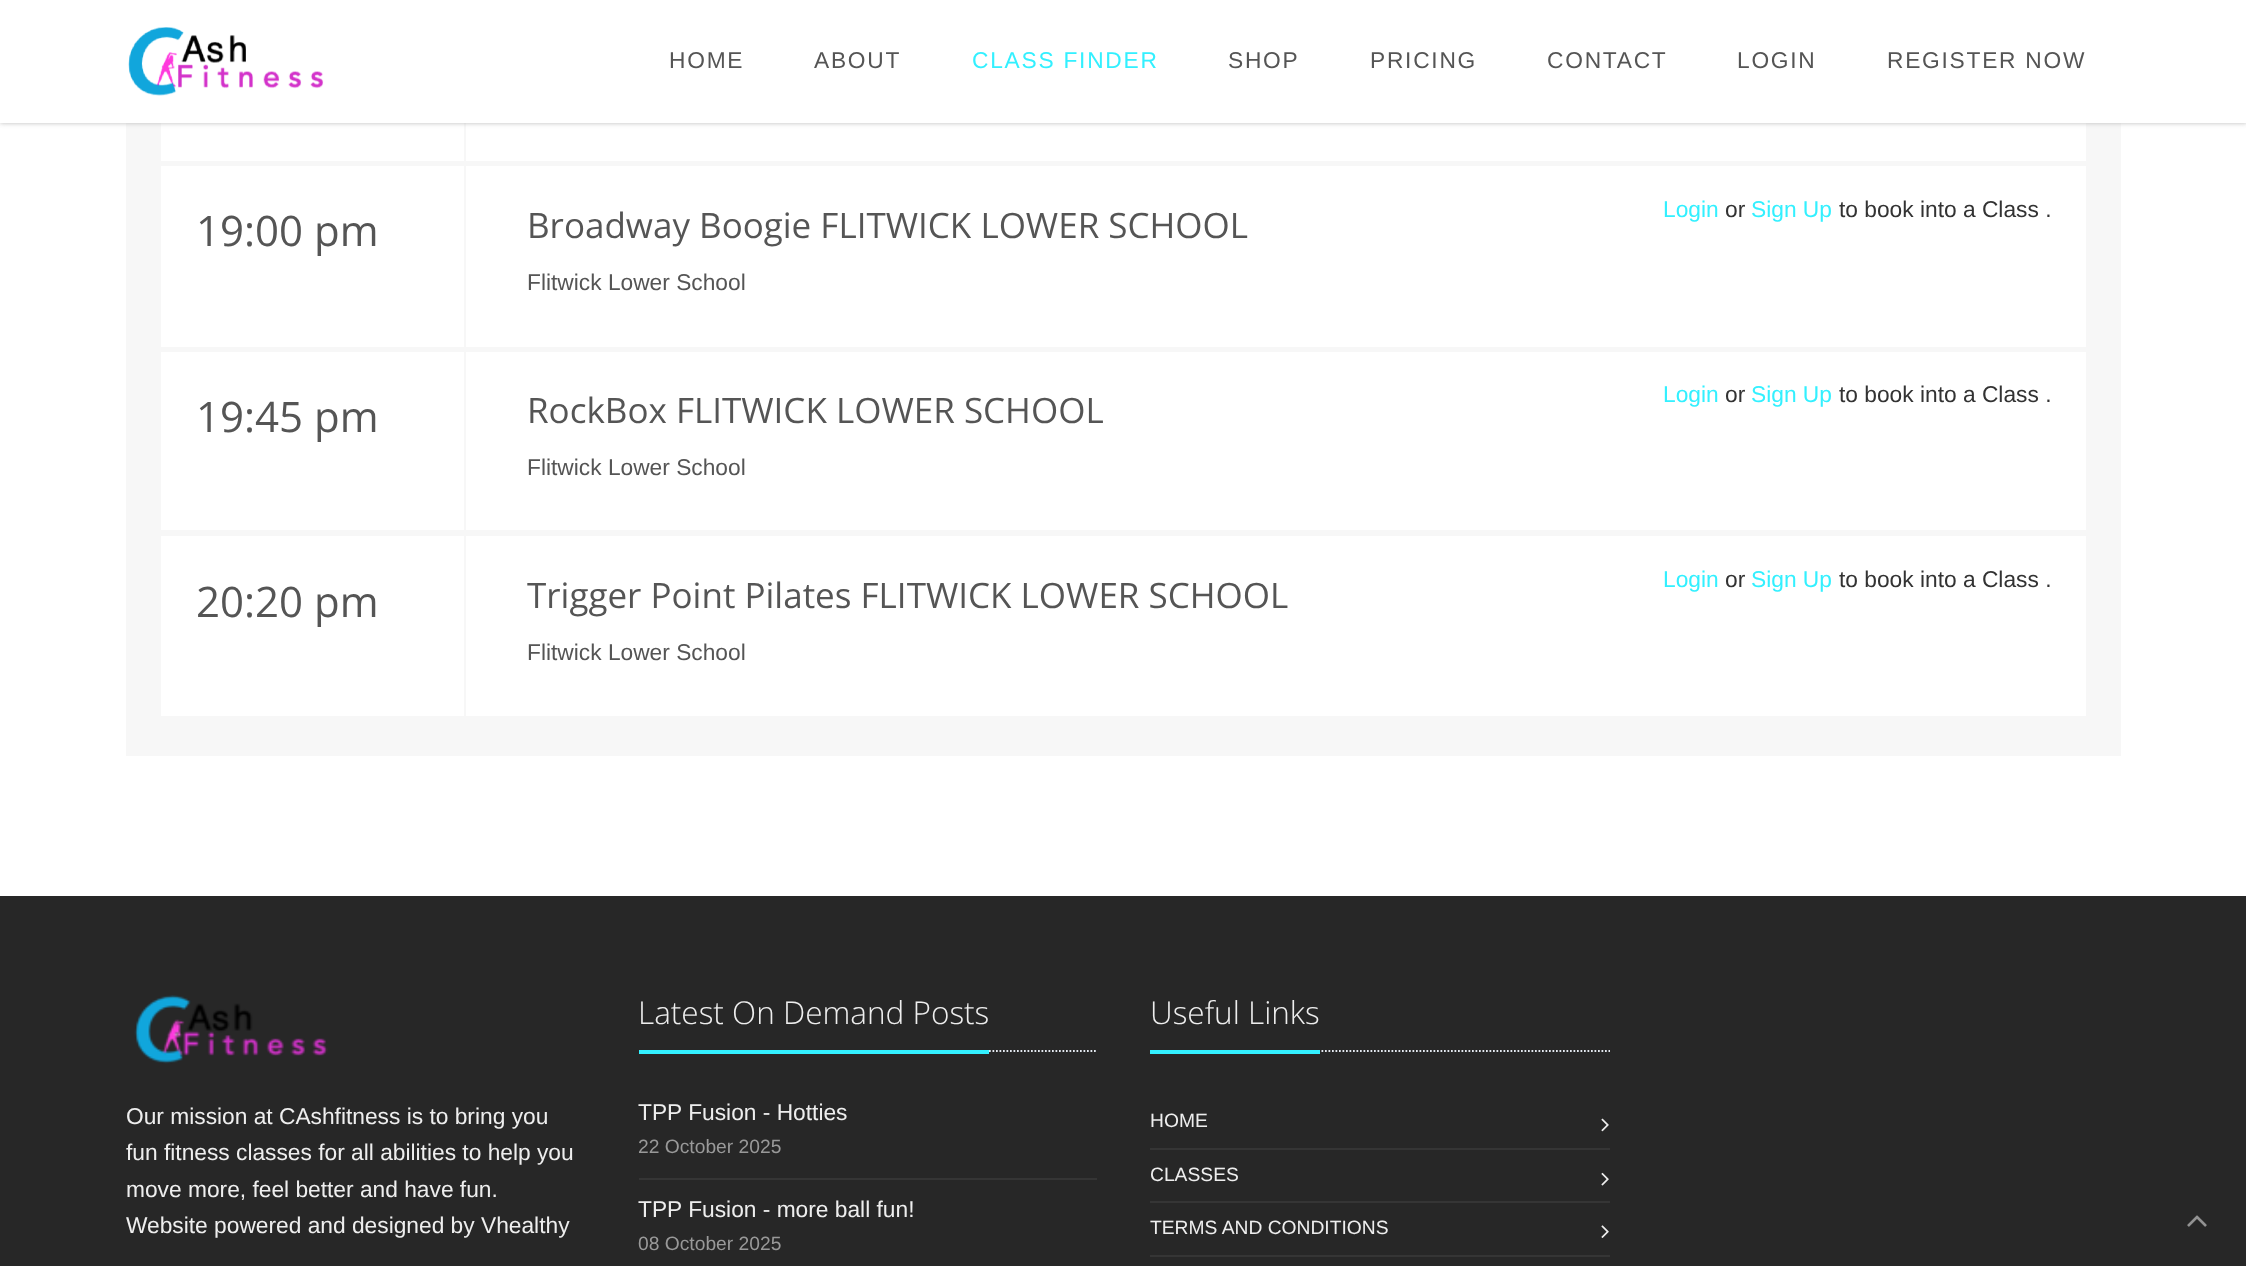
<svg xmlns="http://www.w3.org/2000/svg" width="2246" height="1266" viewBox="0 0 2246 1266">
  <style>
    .t1 { font: 22.75px Liberation Sans; letter-spacing: 1.75px; fill: #555; }
    .t2 { font: 22.75px Liberation Sans; letter-spacing: 1.75px; fill: #33f0ff; }
    .t3 { font: 42px Open Sans; fill: #555; }
    .t4 { font: 35px Open Sans; fill: #555; }
    .t5 { font: 22.75px Liberation Sans; fill: #33f0ff; }
    .t6 { font: 22.75px Liberation Sans; fill: #333; }
    .t7 { font: 22.75px Liberation Sans; fill: #555; }
    .t8 { font: 22.75px Liberation Sans; fill: #eee; }
    .t9 { font: 300 31.5px Open Sans; fill: #eee; }
    .t10 { font: 19.25px Liberation Sans; fill: #999; }
    .t11 { font: 19.25px Liberation Sans; fill: #eee; }
  </style>
  <rect width="100%" height="100%" fill="#fff"/>
  <rect x="126" y="123" width="1995" height="633" fill="#f7f7f7"/>
  <rect x="161" y="123" width="1925" height="38" fill="#fff"/>
  <rect x="464" y="123" width="2" height="38" fill="#f7f7f7"/>
  <rect x="0" y="0" width="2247" height="123" fill="#bbb" filter="blur(2.5px)"/>
  <rect x="0" y="0" width="2246" height="123" fill="#fff"/>
  <image x="128" y="27" width="196" height="69" href="images/1.png"/>
  <text x="669" y="68" class="t1">HOME</text>
  <text x="814" y="68" class="t1">ABOUT</text>
  <text x="972" y="68" class="t2">CLASS FINDER</text>
  <text x="1228" y="68" class="t1">SHOP</text>
  <text x="1370" y="68" class="t1">PRICING</text>
  <text x="1547" y="68" class="t1">CONTACT</text>
  <text x="1737" y="68" class="t1">LOGIN</text>
  <text x="1887" y="68" class="t1">REGISTER NOW</text>
  <rect x="161" y="166" width="1925" height="181" fill="#fff"/>
  <text x="196" y="246" class="t3">19:00 pm</text>
  <rect x="464" y="166" width="2" height="181" fill="#f7f7f7"/>
  <text x="527" y="238" class="t4">Broadway Boogie FLITWICK LOWER SCHOOL</text>
  <text x="1663" y="217" class="t5">Login</text>
  <text x="1725" y="217" class="t6">or</text>
  <text x="1751" y="217" class="t5">Sign Up</text>
  <text x="1839" y="217" class="t6">to book into a Class .</text>
  <text x="527" y="290" class="t7">Flitwick Lower School</text>
  <rect x="161" y="352" width="1925" height="178" fill="#fff"/>
  <text x="196" y="432" class="t3">19:45 pm</text>
  <rect x="464" y="352" width="2" height="178" fill="#f7f7f7"/>
  <text x="527" y="423" class="t4">RockBox FLITWICK LOWER SCHOOL</text>
  <text x="1663" y="402" class="t5">Login</text>
  <text x="1725" y="402" class="t6">or</text>
  <text x="1751" y="402" class="t5">Sign Up</text>
  <text x="1839" y="402" class="t6">to book into a Class .</text>
  <text x="527" y="475" class="t7">Flitwick Lower School</text>
  <rect x="161" y="536" width="1925" height="180" fill="#fff"/>
  <text x="196" y="617" class="t3">20:20 pm</text>
  <rect x="464" y="536" width="2" height="180" fill="#f7f7f7"/>
  <text x="527" y="608" class="t4">Trigger Point Pilates FLITWICK LOWER SCHOOL</text>
  <text x="1663" y="587" class="t5">Login</text>
  <text x="1725" y="587" class="t6">or</text>
  <text x="1751" y="587" class="t5">Sign Up</text>
  <text x="1839" y="587" class="t6">to book into a Class .</text>
  <text x="527" y="660" class="t7">Flitwick Lower School</text>
  <rect x="0" y="896" width="2246" height="370" fill="#272727"/>
  <image x="134" y="995" width="194" height="69" href="images/2.png"/>
  <text x="126" y="1124" class="t8">Our mission at CAshfitness is to bring you</text>
  <text x="126" y="1160" class="t8">fun fitness classes for all abilities to help you</text>
  <text x="126" y="1197" class="t8">move more, feel better and have fun.</text>
  <text x="126" y="1233" class="t8">Website powered and designed by Vhealthy</text>
  <path d="M639 1051H1097" fill="none" stroke="#e4e9f0" stroke-width="1.8" stroke-dasharray="1.75 1.75"/>
  <rect x="639" y="1050" width="350" height="4" fill="#33f0ff"/>
  <text x="638" y="1024" class="t9">Latest On Demand Posts</text>
  <text x="638" y="1120" class="t8">TPP Fusion - Hotties</text>
  <text x="638" y="1153" class="t10">22 October 2025</text>
  <rect x="639" y="1178" width="458" height="2" fill="#353535"/>
  <text x="638" y="1217" class="t8">TPP Fusion - more ball fun!</text>
  <text x="638" y="1250" class="t10">08 October 2025</text>
  <path d="M1150 1051H1610" fill="none" stroke="#e4e9f0" stroke-width="1.8" stroke-dasharray="1.75 1.75"/>
  <rect x="1150" y="1050" width="170" height="4" fill="#33f0ff"/>
  <text x="1150" y="1024" class="t9">Useful Links</text>
  <text x="1150" y="1127" class="t11">HOME</text>
  <image x="1601" y="1118" width="8" height="14" href="images/3.png"/>
  <rect x="1150" y="1148" width="460" height="2" fill="#353535"/>
  <text x="1150" y="1181" class="t11">CLASSES</text>
  <image x="1601" y="1172" width="8" height="14" href="images/4.png"/>
  <rect x="1150" y="1201" width="460" height="2" fill="#353535"/>
  <text x="1150" y="1234" class="t11">TERMS AND CONDITIONS</text>
  <image x="1601" y="1225" width="8" height="13" href="images/5.png"/>
  <rect x="1150" y="1255" width="460" height="2" fill="#353535"/>
  <image x="2187" y="1215" width="20" height="12" href="images/6.png"/>
</svg>
